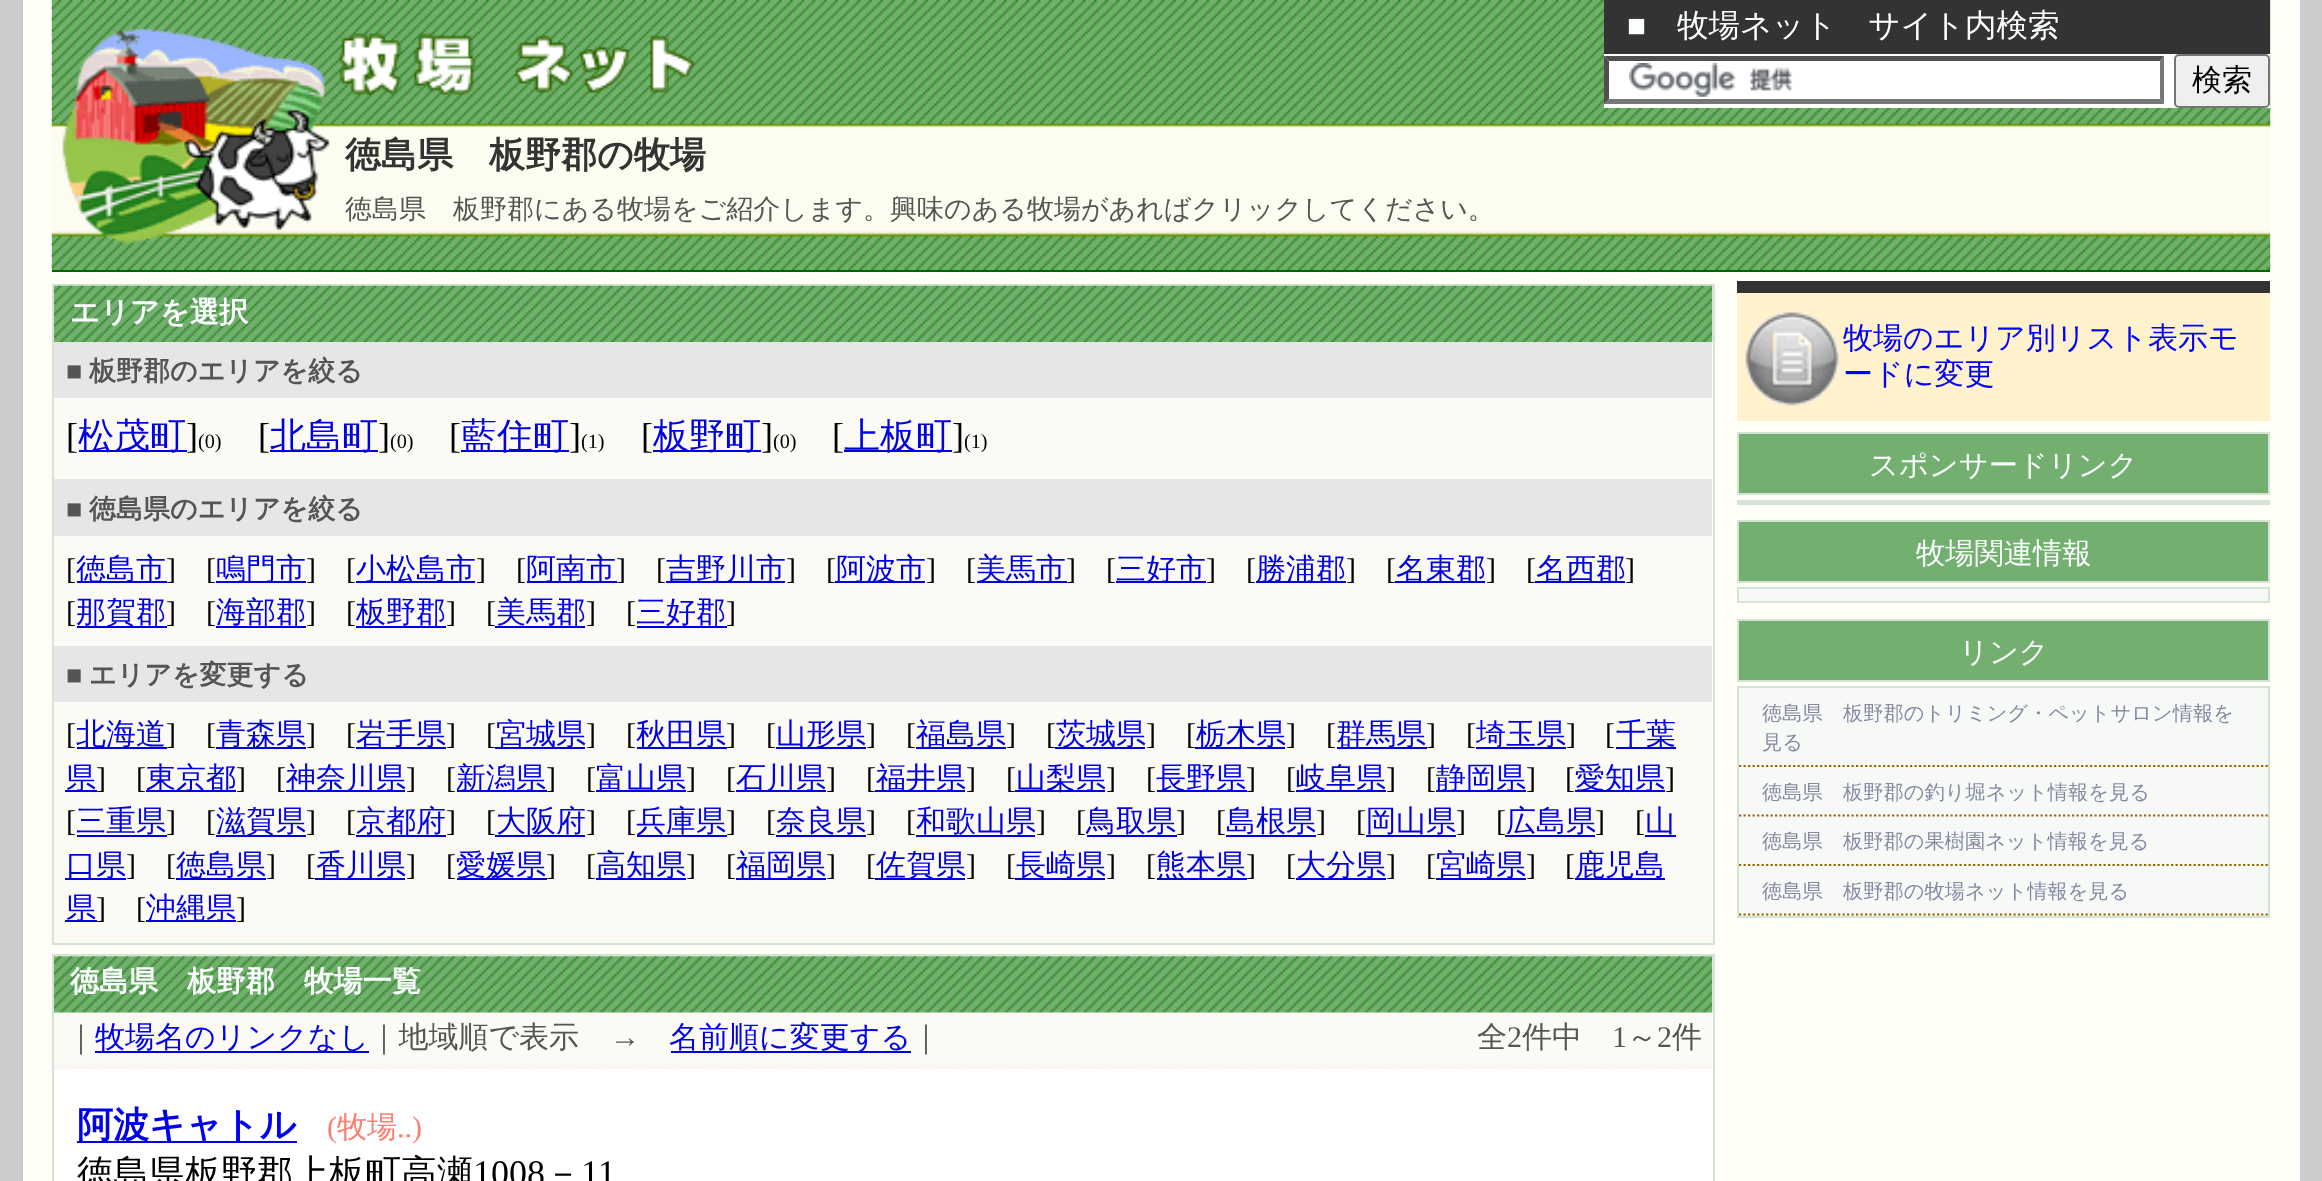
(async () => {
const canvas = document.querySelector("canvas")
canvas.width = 2322
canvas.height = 1181
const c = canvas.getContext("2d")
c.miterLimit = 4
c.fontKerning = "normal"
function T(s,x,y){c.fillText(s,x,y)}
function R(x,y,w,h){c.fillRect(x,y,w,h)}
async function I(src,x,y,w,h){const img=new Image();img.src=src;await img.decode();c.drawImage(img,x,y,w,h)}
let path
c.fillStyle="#ccc"
R(0,0,2322,1181)
c.fillStyle="#fffff7"
R(23,0,2277,1181)
await I("1.png",51,0,2220,270)
c.fillStyle="#060"
R(52,270,2218,2)
c.fillStyle="#fff"
R(1604,54,666,54)
c.fillStyle="#333"
R(1604,0,666,54)
c.font="31.5px Liberation Serif"
c.fillStyle="#fbfeff"
T("■",1627,36)
c.font="500 31.5px WenQuanYi Zen Hei"
T("牧場ネット　サイト内検索",1677,36)
await I("2.png",1629,63,164,34)
c.fillStyle="#4f4f4f"
path = new Path2D("M1604 56h560l-4 5h-551z")
c.fill(path)
c.fillStyle="#767676"
path = new Path2D("M2164 56v48l-4-5v-38z")
c.fill(path)
path = new Path2D("M2164 104h-560l5-5h551z")
c.fill(path)
c.fillStyle="#4f4f4f"
path = new Path2D("M1604 104v-48l5 5v38z")
c.fill(path)
c.fillStyle="#efefef"
c.beginPath()
c.roundRect(2175,55,94,52,4)
c.fill()
c.strokeStyle="#767676"
c.lineWidth=2
c.stroke()
c.font="500 30px WenQuanYi Zen Hei"
c.fillStyle="#000"
T("検索",2192,90)
c.font="bold 36px WenQuanYi Zen Hei"
c.fillStyle="#333"
T("徳島県　板野郡の牧場",345,167)
c.font="500 27px WenQuanYi Zen Hei"
c.fillStyle="#555"
T("徳島県　板野郡にある牧場をご紹介します。興味のある牧場があればクリックしてください。",345,218)
c.fillStyle="#fbfaf4"
c.beginPath()
c.rect(53,285,1661,659)
c.fill()
c.strokeStyle="#d5e3d5"
c.stroke()
await I("3.png",54,285,1659,57)
c.font="bold 29.25px WenQuanYi Zen Hei"
c.fillStyle="#fbfeff"
T("エリアを選択",70,322)
c.fillStyle="#e6e6e6"
R(54,342,1658,56)
c.font="bold 27px Liberation Serif"
c.fillStyle="#555"
T("■",66,380)
c.font="bold 27px WenQuanYi Zen Hei"
T("板野郡のエリアを絞る",89,380)
c.font="36px Liberation Serif"
c.fillStyle="#000"
T("[",66,448)
c.fillStyle="#0000e3"
R(79,450,108,2)
c.font="500 36px WenQuanYi Zen Hei"
T("松茂町",78,448)
c.font="36px Liberation Serif"
c.fillStyle="#000"
T("]",186,448)
c.font="20.25px Liberation Serif"
T("(0)",198,448)
c.font="36px Liberation Serif"
T("[",258,448)
c.fillStyle="#0000e3"
R(270,450,108,2)
c.font="500 36px WenQuanYi Zen Hei"
T("北島町",270,448)
c.font="36px Liberation Serif"
c.fillStyle="#000"
T("]",378,448)
c.font="20.25px Liberation Serif"
T("(0)",390,448)
c.font="36px Liberation Serif"
T("[",449,448)
c.fillStyle="#0000e3"
R(461,450,108,2)
c.font="500 36px WenQuanYi Zen Hei"
T("藍住町",461,448)
c.font="36px Liberation Serif"
c.fillStyle="#000"
T("]",569,448)
c.font="20.25px Liberation Serif"
T("(1)",581,448)
c.font="36px Liberation Serif"
T("[",641,448)
c.fillStyle="#0000e3"
R(653,450,108,2)
c.font="500 36px WenQuanYi Zen Hei"
T("板野町",653,448)
c.font="36px Liberation Serif"
c.fillStyle="#000"
T("]",761,448)
c.font="20.25px Liberation Serif"
T("(0)",773,448)
c.font="36px Liberation Serif"
T("[",832,448)
c.fillStyle="#0000e3"
R(844,450,108,2)
c.font="500 36px WenQuanYi Zen Hei"
T("上板町",844,448)
c.font="36px Liberation Serif"
c.fillStyle="#000"
T("]",952,448)
c.font="20.25px Liberation Serif"
T("(1)",964,448)
c.fillStyle="#e6e6e6"
R(54,479,1658,57)
c.font="bold 27px Liberation Serif"
c.fillStyle="#555"
T("■",66,518)
c.font="bold 27px WenQuanYi Zen Hei"
T("徳島県のエリアを絞る",89,518)
c.font="30px Liberation Serif"
c.fillStyle="#000"
T("[",66,579)
c.fillStyle="#0000e3"
R(77,581,90,2)
c.font="500 30px WenQuanYi Zen Hei"
T("徳島市",76,579)
c.font="30px Liberation Serif"
c.fillStyle="#000"
T("]",166,579)
T("[",206,579)
c.fillStyle="#0000e3"
R(216,581,90,2)
c.font="500 30px WenQuanYi Zen Hei"
T("鳴門市",216,579)
c.font="30px Liberation Serif"
c.fillStyle="#000"
T("]",306,579)
T("[",346,579)
c.fillStyle="#0000e3"
R(356,581,119,2)
c.font="500 30px WenQuanYi Zen Hei"
T("小松島市",356,579)
c.font="30px Liberation Serif"
c.fillStyle="#000"
T("]",476,579)
T("[",516,579)
c.fillStyle="#0000e3"
R(527,581,90,2)
c.font="500 30px WenQuanYi Zen Hei"
T("阿南市",526,579)
c.font="30px Liberation Serif"
c.fillStyle="#000"
T("]",616,579)
T("[",656,579)
c.fillStyle="#0000e3"
R(666,581,119,2)
c.font="500 30px WenQuanYi Zen Hei"
T("吉野川市",666,579)
c.font="30px Liberation Serif"
c.fillStyle="#000"
T("]",786,579)
T("[",826,579)
c.fillStyle="#0000e3"
R(835,581,90,2)
c.font="500 30px WenQuanYi Zen Hei"
T("阿波市",836,579)
c.font="30px Liberation Serif"
c.fillStyle="#000"
T("]",926,579)
T("[",966,579)
c.fillStyle="#0000e3"
R(977,581,90,2)
c.font="500 30px WenQuanYi Zen Hei"
T("美馬市",976,579)
c.font="30px Liberation Serif"
c.fillStyle="#000"
T("]",1066,579)
T("[",1106,579)
c.fillStyle="#0000e3"
R(1116,581,90,2)
c.font="500 30px WenQuanYi Zen Hei"
T("三好市",1116,579)
c.font="30px Liberation Serif"
c.fillStyle="#000"
T("]",1206,579)
T("[",1246,579)
c.fillStyle="#0000e3"
R(1256,581,90,2)
c.font="500 30px WenQuanYi Zen Hei"
T("勝浦郡",1256,579)
c.font="30px Liberation Serif"
c.fillStyle="#000"
T("]",1346,579)
T("[",1386,579)
c.fillStyle="#0000e3"
R(1395,581,90,2)
c.font="500 30px WenQuanYi Zen Hei"
T("名東郡",1396,579)
c.font="30px Liberation Serif"
c.fillStyle="#000"
T("]",1486,579)
T("[",1526,579)
c.fillStyle="#0000e3"
R(1535,581,90,2)
c.font="500 30px WenQuanYi Zen Hei"
T("名西郡",1536,579)
c.font="30px Liberation Serif"
c.fillStyle="#000"
T("]",1625,579)
T("[",66,622)
c.fillStyle="#0000e3"
R(77,626,90,2)
c.font="500 30px WenQuanYi Zen Hei"
T("那賀郡",76,622)
c.font="30px Liberation Serif"
c.fillStyle="#000"
T("]",166,622)
T("[",206,622)
c.font="500 30px WenQuanYi Zen Hei"
c.fillStyle="#0000e3"
T("海部郡",216,622)
R(216,626,90,2)
c.font="30px Liberation Serif"
c.fillStyle="#000"
T("]",306,622)
T("[",346,622)
c.font="500 30px WenQuanYi Zen Hei"
c.fillStyle="#0000e3"
T("板野郡",356,622)
R(356,626,90,2)
c.font="30px Liberation Serif"
c.fillStyle="#000"
T("]",446,622)
T("[",486,622)
c.font="500 30px WenQuanYi Zen Hei"
c.fillStyle="#0000e3"
T("美馬郡",496,622)
R(495,626,90,2)
c.font="30px Liberation Serif"
c.fillStyle="#000"
T("]",586,622)
T("[",626,622)
c.fillStyle="#0000e3"
R(637,626,90,2)
c.font="500 30px WenQuanYi Zen Hei"
T("三好郡",636,622)
c.font="30px Liberation Serif"
c.fillStyle="#000"
T("]",726,622)
c.fillStyle="#e6e6e6"
R(54,646,1658,56)
c.font="bold 27px Liberation Serif"
c.fillStyle="#555"
T("■",66,684)
c.font="bold 27px WenQuanYi Zen Hei"
T("エリアを変更する",89,684)
c.font="30px Liberation Serif"
c.fillStyle="#000"
T("[",66,744)
c.fillStyle="#0000e3"
R(77,747,90,2)
c.font="500 30px WenQuanYi Zen Hei"
T("北海道",76,744)
c.font="30px Liberation Serif"
c.fillStyle="#000"
T("]",166,744)
T("[",206,744)
c.fillStyle="#0000e3"
R(216,747,90,2)
c.font="500 30px WenQuanYi Zen Hei"
T("青森県",216,744)
c.font="30px Liberation Serif"
c.fillStyle="#000"
T("]",306,744)
T("[",346,744)
c.fillStyle="#0000e3"
R(356,747,90,2)
c.font="500 30px WenQuanYi Zen Hei"
T("岩手県",356,744)
c.font="30px Liberation Serif"
c.fillStyle="#000"
T("]",446,744)
T("[",486,744)
c.fillStyle="#0000e3"
R(495,747,90,2)
c.font="500 30px WenQuanYi Zen Hei"
T("宮城県",496,744)
c.font="30px Liberation Serif"
c.fillStyle="#000"
T("]",586,744)
T("[",626,744)
c.fillStyle="#0000e3"
R(637,747,90,2)
c.font="500 30px WenQuanYi Zen Hei"
T("秋田県",636,744)
c.font="30px Liberation Serif"
c.fillStyle="#000"
T("]",726,744)
T("[",766,744)
c.fillStyle="#0000e3"
R(776,747,90,2)
c.font="500 30px WenQuanYi Zen Hei"
T("山形県",776,744)
c.font="30px Liberation Serif"
c.fillStyle="#000"
T("]",866,744)
T("[",906,744)
c.fillStyle="#0000e3"
R(916,747,90,2)
c.font="500 30px WenQuanYi Zen Hei"
T("福島県",916,744)
c.font="30px Liberation Serif"
c.fillStyle="#000"
T("]",1006,744)
T("[",1046,744)
c.fillStyle="#0000e3"
R(1055,747,90,2)
c.font="500 30px WenQuanYi Zen Hei"
T("茨城県",1056,744)
c.font="30px Liberation Serif"
c.fillStyle="#000"
T("]",1146,744)
T("[",1186,744)
c.fillStyle="#0000e3"
R(1195,747,90,2)
c.font="500 30px WenQuanYi Zen Hei"
T("栃木県",1196,744)
c.font="30px Liberation Serif"
c.fillStyle="#000"
T("]",1286,744)
T("[",1326,744)
c.fillStyle="#0000e3"
R(1337,747,90,2)
c.font="500 30px WenQuanYi Zen Hei"
T("群馬県",1336,744)
c.font="30px Liberation Serif"
c.fillStyle="#000"
T("]",1426,744)
T("[",1466,744)
c.fillStyle="#0000e3"
R(1476,747,90,2)
c.font="500 30px WenQuanYi Zen Hei"
T("埼玉県",1476,744)
c.font="30px Liberation Serif"
c.fillStyle="#000"
T("]",1566,744)
T("[",1605,744)
c.fillStyle="#0000e3"
R(1616,747,60,2)
c.font="500 30px WenQuanYi Zen Hei"
T("千葉",1616,744)
R(65,790,32,2)
T("県",66,788)
c.font="30px Liberation Serif"
c.fillStyle="#000"
T("]",96,788)
T("[",136,788)
c.fillStyle="#0000e3"
R(146,790,90,2)
c.font="500 30px WenQuanYi Zen Hei"
T("東京都",146,788)
c.font="30px Liberation Serif"
c.fillStyle="#000"
T("]",236,788)
T("[",276,788)
c.fillStyle="#0000e3"
R(286,790,119,2)
c.font="500 30px WenQuanYi Zen Hei"
T("神奈川県",286,788)
c.font="30px Liberation Serif"
c.fillStyle="#000"
T("]",406,788)
T("[",446,788)
c.fillStyle="#0000e3"
R(457,790,90,2)
c.font="500 30px WenQuanYi Zen Hei"
T("新潟県",456,788)
c.font="30px Liberation Serif"
c.fillStyle="#000"
T("]",546,788)
T("[",586,788)
c.fillStyle="#0000e3"
R(596,790,90,2)
c.font="500 30px WenQuanYi Zen Hei"
T("富山県",596,788)
c.font="30px Liberation Serif"
c.fillStyle="#000"
T("]",686,788)
T("[",726,788)
c.fillStyle="#0000e3"
R(736,790,90,2)
c.font="500 30px WenQuanYi Zen Hei"
T("石川県",736,788)
c.font="30px Liberation Serif"
c.fillStyle="#000"
T("]",826,788)
T("[",866,788)
c.fillStyle="#0000e3"
R(875,790,90,2)
c.font="500 30px WenQuanYi Zen Hei"
T("福井県",876,788)
c.font="30px Liberation Serif"
c.fillStyle="#000"
T("]",966,788)
T("[",1006,788)
c.fillStyle="#0000e3"
R(1015,790,90,2)
c.font="500 30px WenQuanYi Zen Hei"
T("山梨県",1016,788)
c.font="30px Liberation Serif"
c.fillStyle="#000"
T("]",1106,788)
T("[",1146,788)
c.fillStyle="#0000e3"
R(1157,790,90,2)
c.font="500 30px WenQuanYi Zen Hei"
T("長野県",1156,788)
c.font="30px Liberation Serif"
c.fillStyle="#000"
T("]",1246,788)
T("[",1286,788)
c.fillStyle="#0000e3"
R(1296,790,90,2)
c.font="500 30px WenQuanYi Zen Hei"
T("岐阜県",1296,788)
c.font="30px Liberation Serif"
c.fillStyle="#000"
T("]",1386,788)
T("[",1426,788)
c.fillStyle="#0000e3"
R(1436,790,90,2)
c.font="500 30px WenQuanYi Zen Hei"
T("静岡県",1436,788)
c.font="30px Liberation Serif"
c.fillStyle="#000"
T("]",1526,788)
T("[",1565,788)
c.fillStyle="#0000e3"
R(1575,790,90,2)
c.font="500 30px WenQuanYi Zen Hei"
T("愛知県",1575,788)
c.font="30px Liberation Serif"
c.fillStyle="#000"
T("]",1665,788)
T("[",66,831)
c.font="500 30px WenQuanYi Zen Hei"
c.fillStyle="#0000e3"
T("三重県",76,831)
R(77,835,90,2)
c.font="30px Liberation Serif"
c.fillStyle="#000"
T("]",166,831)
T("[",206,831)
c.fillStyle="#0000e3"
R(216,835,90,2)
c.font="500 30px WenQuanYi Zen Hei"
T("滋賀県",216,831)
c.font="30px Liberation Serif"
c.fillStyle="#000"
T("]",306,831)
T("[",346,831)
c.font="500 30px WenQuanYi Zen Hei"
c.fillStyle="#0000e3"
T("京都府",356,831)
R(356,835,90,2)
c.font="30px Liberation Serif"
c.fillStyle="#000"
T("]",446,831)
T("[",486,831)
c.font="500 30px WenQuanYi Zen Hei"
c.fillStyle="#0000e3"
T("大阪府",496,831)
R(495,835,90,2)
c.font="30px Liberation Serif"
c.fillStyle="#000"
T("]",586,831)
T("[",626,831)
c.fillStyle="#0000e3"
R(637,835,90,2)
c.font="500 30px WenQuanYi Zen Hei"
T("兵庫県",636,831)
c.font="30px Liberation Serif"
c.fillStyle="#000"
T("]",726,831)
T("[",766,831)
c.font="500 30px WenQuanYi Zen Hei"
c.fillStyle="#0000e3"
T("奈良県",776,831)
R(776,835,90,2)
c.font="30px Liberation Serif"
c.fillStyle="#000"
T("]",866,831)
T("[",906,831)
c.fillStyle="#0000e3"
R(916,835,119,2)
c.font="500 30px WenQuanYi Zen Hei"
T("和歌山県",916,831)
c.font="30px Liberation Serif"
c.fillStyle="#000"
T("]",1036,831)
T("[",1076,831)
c.font="500 30px WenQuanYi Zen Hei"
c.fillStyle="#0000e3"
T("鳥取県",1086,831)
R(1087,835,90,2)
c.font="30px Liberation Serif"
c.fillStyle="#000"
T("]",1176,831)
T("[",1216,831)
c.font="500 30px WenQuanYi Zen Hei"
c.fillStyle="#0000e3"
T("島根県",1226,831)
R(1226,835,90,2)
c.font="30px Liberation Serif"
c.fillStyle="#000"
T("]",1316,831)
T("[",1356,831)
c.font="500 30px WenQuanYi Zen Hei"
c.fillStyle="#0000e3"
T("岡山県",1366,831)
R(1366,835,90,2)
c.font="30px Liberation Serif"
c.fillStyle="#000"
T("]",1456,831)
T("[",1496,831)
c.font="500 30px WenQuanYi Zen Hei"
c.fillStyle="#0000e3"
T("広島県",1506,831)
R(1505,835,90,2)
c.font="30px Liberation Serif"
c.fillStyle="#000"
T("]",1595,831)
T("[",1635,831)
c.font="500 30px WenQuanYi Zen Hei"
c.fillStyle="#0000e3"
T("山",1645,831)
R(1645,835,31,2)
R(65,878,61,2)
T("口県",66,875)
c.font="30px Liberation Serif"
c.fillStyle="#000"
T("]",126,875)
T("[",166,875)
c.fillStyle="#0000e3"
R(176,878,90,2)
c.font="500 30px WenQuanYi Zen Hei"
T("徳島県",176,875)
c.font="30px Liberation Serif"
c.fillStyle="#000"
T("]",266,875)
T("[",306,875)
c.fillStyle="#0000e3"
R(315,878,90,2)
c.font="500 30px WenQuanYi Zen Hei"
T("香川県",316,875)
c.font="30px Liberation Serif"
c.fillStyle="#000"
T("]",406,875)
T("[",446,875)
c.fillStyle="#0000e3"
R(457,878,90,2)
c.font="500 30px WenQuanYi Zen Hei"
T("愛媛県",456,875)
c.font="30px Liberation Serif"
c.fillStyle="#000"
T("]",546,875)
T("[",586,875)
c.fillStyle="#0000e3"
R(596,878,90,2)
c.font="500 30px WenQuanYi Zen Hei"
T("高知県",596,875)
c.font="30px Liberation Serif"
c.fillStyle="#000"
T("]",686,875)
T("[",726,875)
c.fillStyle="#0000e3"
R(736,878,90,2)
c.font="500 30px WenQuanYi Zen Hei"
T("福岡県",736,875)
c.font="30px Liberation Serif"
c.fillStyle="#000"
T("]",826,875)
T("[",866,875)
c.fillStyle="#0000e3"
R(875,878,90,2)
c.font="500 30px WenQuanYi Zen Hei"
T("佐賀県",876,875)
c.font="30px Liberation Serif"
c.fillStyle="#000"
T("]",966,875)
T("[",1006,875)
c.fillStyle="#0000e3"
R(1015,878,90,2)
c.font="500 30px WenQuanYi Zen Hei"
T("長崎県",1016,875)
c.font="30px Liberation Serif"
c.fillStyle="#000"
T("]",1106,875)
T("[",1146,875)
c.fillStyle="#0000e3"
R(1157,878,90,2)
c.font="500 30px WenQuanYi Zen Hei"
T("熊本県",1156,875)
c.font="30px Liberation Serif"
c.fillStyle="#000"
T("]",1246,875)
T("[",1286,875)
c.fillStyle="#0000e3"
R(1296,878,90,2)
c.font="500 30px WenQuanYi Zen Hei"
T("大分県",1296,875)
c.font="30px Liberation Serif"
c.fillStyle="#000"
T("]",1386,875)
T("[",1426,875)
c.fillStyle="#0000e3"
R(1436,878,90,2)
c.font="500 30px WenQuanYi Zen Hei"
T("宮崎県",1436,875)
c.font="30px Liberation Serif"
c.fillStyle="#000"
T("]",1526,875)
T("[",1565,875)
c.fillStyle="#0000e3"
R(1575,878,90,2)
c.font="500 30px WenQuanYi Zen Hei"
T("鹿児島",1575,875)
R(65,920,32,2)
T("県",66,918)
c.font="30px Liberation Serif"
c.fillStyle="#000"
T("]",96,918)
T("[",136,918)
c.fillStyle="#0000e3"
R(146,920,90,2)
c.font="500 30px WenQuanYi Zen Hei"
T("沖縄県",146,918)
c.font="30px Liberation Serif"
c.fillStyle="#000"
T("]",236,918)
c.fillStyle="#fff"
c.beginPath()
c.rect(53,955,1661,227)
c.fill()
c.stroke()
await I("4.png",54,956,1659,57)
c.font="bold 29.25px WenQuanYi Zen Hei"
c.fillStyle="#fbfeff"
T("徳島県　板野郡　牧場一覧",70,991)
c.fillStyle="#fbfaf4"
R(54,1013,1658,56)
path = new Path2D("M54 1067.5h1658")
c.strokeStyle="#f9efe8"
c.lineWidth=2.2
c.setLineDash([2.25,2.25])
c.stroke(path)
c.font="500 30px WenQuanYi Zen Hei"
c.fillStyle="#555"
T("｜",66,1047)
c.fillStyle="#00e"
R(95,1051,274,2)
T("牧場名のリンクなし",95,1047)
c.fillStyle="#555"
T("｜地域順で表示",369,1047)
c.font="30px Liberation Serif"
T("→",610,1047)
c.fillStyle="#00e"
R(671,1051,240,2)
c.font="500 30px WenQuanYi Zen Hei"
T("名前順に変更する",669,1047)
c.fillStyle="#555"
T("｜",911,1047)
T("全",1477,1047)
c.font="30px Liberation Serif"
T("2",1507,1047)
c.font="500 30px WenQuanYi Zen Hei"
T("件中",1522,1047)
c.font="30px Liberation Serif"
T("1",1612,1047)
c.font="500 30px WenQuanYi Zen Hei"
T("～",1627,1047)
c.font="30px Liberation Serif"
T("2",1657,1047)
c.font="500 30px WenQuanYi Zen Hei"
T("件",1672,1047)
c.fillStyle="#00e"
R(77,1141,220,2)
c.font="bold 36px WenQuanYi Zen Hei"
T("阿波キャトル",77,1137)
c.font="30px Liberation Serif"
c.fillStyle="#fa8072"
T("(",327,1137)
c.font="500 30px WenQuanYi Zen Hei"
T("牧場",337,1137)
c.font="30px Liberation Serif"
T("..)",397,1137)
c.font="500 36px WenQuanYi Zen Hei"
c.fillStyle="#000"
T("徳島県板野郡上板町高瀬",77,1185)
c.font="36px Liberation Serif"
T("1008",473,1185)
c.font="500 36px WenQuanYi Zen Hei"
T("－",545,1185)
c.font="36px Liberation Serif"
T("11",581,1185)
c.fillStyle="#fff2cc"
R(1737,293,533,128)
c.fillStyle="#333"
R(1737,281,533,12)
await I("5.png",1745,312,94,94)
c.font="500 30px WenQuanYi Zen Hei"
c.fillStyle="#00f"
T("牧場のエリア別リスト表示モ",1843,348)
T("ードに変更",1843,384)
c.fillStyle="#73af6e"
c.beginPath()
c.rect(1738,433,531,61)
c.fill()
c.strokeStyle="#d5e3d5"
c.lineWidth=2
c.setLineDash([])
c.stroke()
c.font="500 29.25px WenQuanYi Zen Hei"
c.fillStyle="#fbfeff"
T("スポンサードリンク",1869,475)
c.fillStyle="#d5e3d5"
R(1737,500,533,5)
c.fillStyle="#73af6e"
c.beginPath()
c.rect(1738,521,531,61)
c.fill()
c.stroke()
c.fillStyle="#fbfeff"
T("牧場関連情報",1916,563)
c.fillStyle="#f7f9f7"
c.beginPath()
c.rect(1738,588,531,14)
c.fill()
c.stroke()
c.fillStyle="#73af6e"
c.beginPath()
c.rect(1738,620,531,61)
c.fill()
c.stroke()
c.fillStyle="#fbfeff"
T("リンク",1959,662)
c.fillStyle="#f7f9f7"
c.beginPath()
c.rect(1738,687,531,230)
c.fill()
c.stroke()
path = new Path2D("M1739 766h529")
c.strokeStyle="#960"
c.lineWidth=2.2
c.setLineDash([2.25,2.25])
c.stroke(path)
c.font="500 20.25px WenQuanYi Zen Hei"
c.fillStyle="#828ba2"
T("徳島県　板野郡のトリミング・ペットサロン情報を",1762,720)
T("見る",1762,749)
path = new Path2D("M1739 815.5h529")
c.stroke(path)
T("徳島県　板野郡の釣り堀ネット情報を見る",1762,799)
path = new Path2D("M1739 865h529")
c.stroke(path)
T("徳島県　板野郡の果樹園ネット情報を見る",1762,848)
path = new Path2D("M1739 914.5h529")
c.stroke(path)
T("徳島県　板野郡の牧場ネット情報を見る",1762,898)
})()
